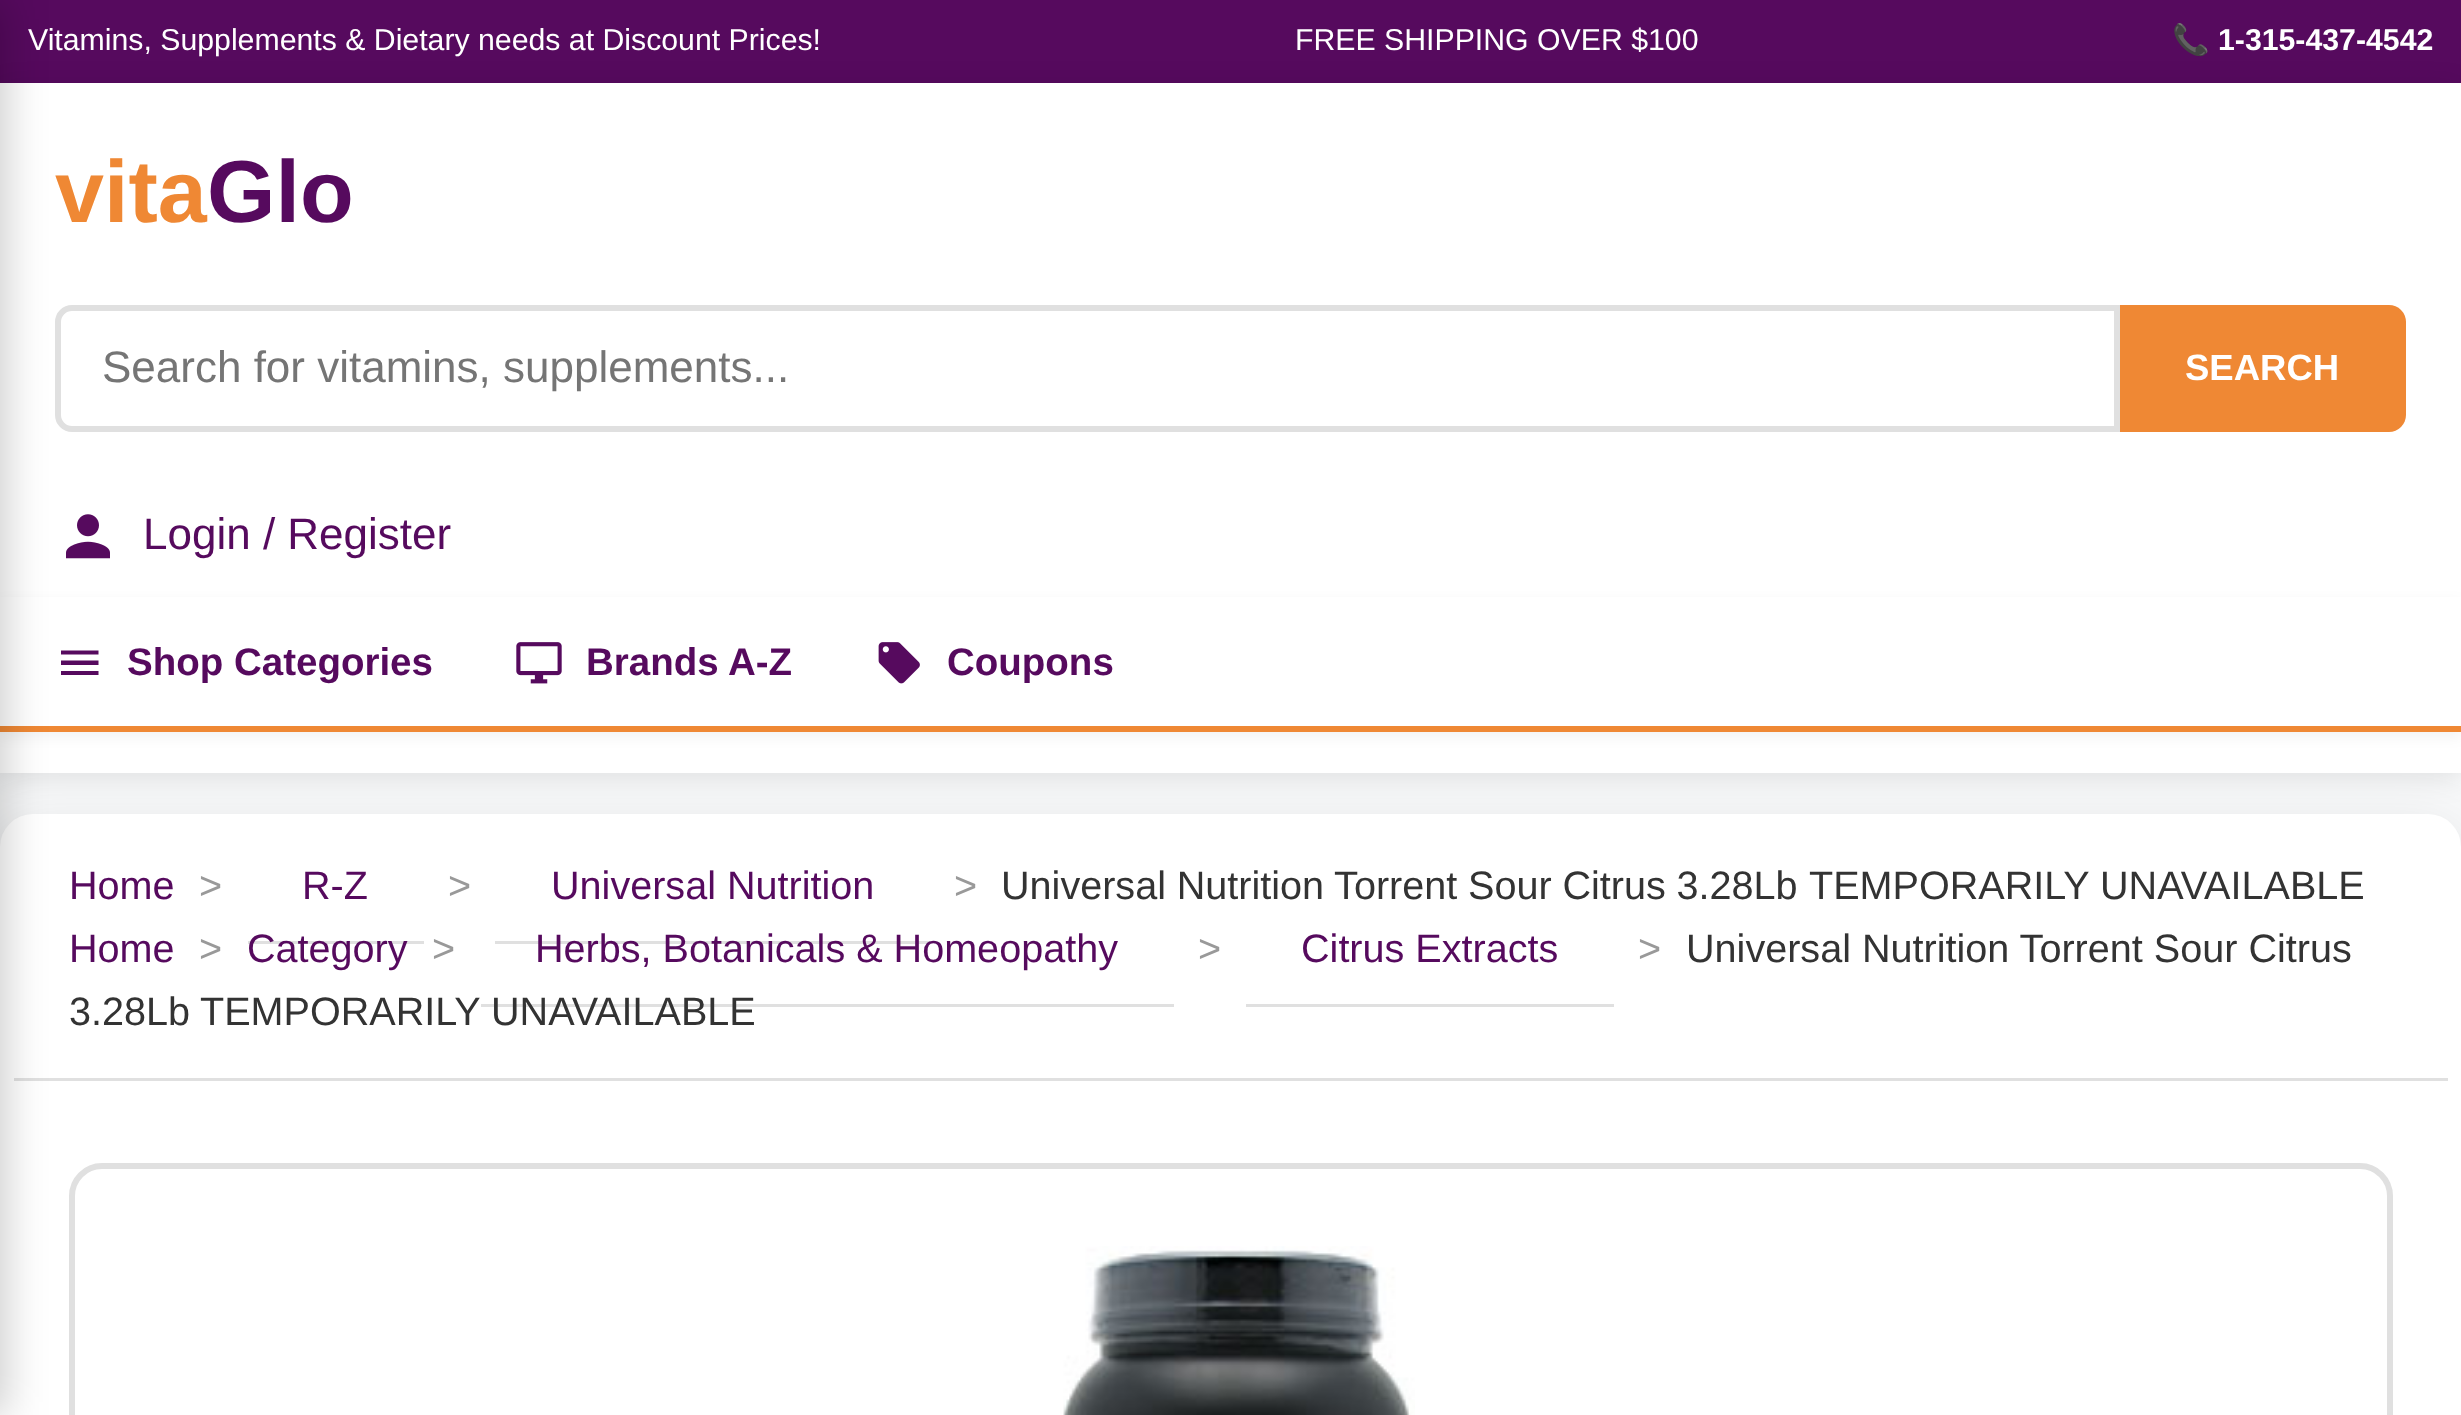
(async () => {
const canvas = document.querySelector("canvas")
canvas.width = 2461
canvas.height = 1415
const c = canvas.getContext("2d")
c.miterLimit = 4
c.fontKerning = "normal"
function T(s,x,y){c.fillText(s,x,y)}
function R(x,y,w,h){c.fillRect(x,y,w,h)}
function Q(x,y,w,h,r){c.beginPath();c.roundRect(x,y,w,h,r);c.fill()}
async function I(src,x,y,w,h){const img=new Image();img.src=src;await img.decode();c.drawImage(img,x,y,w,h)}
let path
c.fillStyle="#f8f9fa"
R(0,0,2461,1415)
c.fillStyle="#560a5e"
R(0,0,2461,83)
c.fillStyle="#0000001a"
c.filter="blur(14px)"
c.beginPath()
c.rect(0,88,2461,690)
c.fill()
c.filter="none"
c.fillStyle="#fff"
R(0,83,2461,690)
c.beginPath()
c.roundRect(58,308,2059,121,[14,0,0,14])
c.strokeStyle="#e0e0e0"
c.lineWidth=6
c.stroke()
await I("1.png",66,514,44,45)
c.fillStyle="#0000000d"
c.filter="blur(7px)"
c.beginPath()
c.rect(0,602,2461,135)
c.fill()
c.filter="none"
c.fillStyle="#fff"
R(0,597,2461,129)
c.fillStyle="#ef8834"
R(0,726,2461,6)
c.fillStyle="#560a5e"
path = new Path2D("M61 675h37.5v-4h-37.5zm0-10h37.5v-4.5h-37.5zm0-14.5v4h37.5v-4z")
c.fill(path)
c.fillStyle="#0000001a"
c.filter="blur(27.5px)"
c.beginPath()
c.roundRect(0,828,2461,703,33)
c.fill()
c.filter="none"
c.fillStyle="#fff"
Q(0,814,2461,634,33)
c.fillStyle="#e0e0e0"
R(14,1078,2434,3)
c.fillStyle="#00000033"
c.filter="blur(20.5px)"
c.beginPath()
c.rect(-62,0,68,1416)
c.fill()
c.filter="none"
c.font="30.25px Liberation Sans"
c.fillStyle="#fff"
T("Vitamins, Supplements & Dietary needs at Discount Prices!",28,50)
T("FREE SHIPPING OVER $100",1295,50)
c.font="bold 30.25px Noto Color Emoji"
T("📞",2172,50)
c.font="bold 30.25px Liberation Sans"
T("1-315-437-4542",2218,50)
c.font="bold 88px Liberation Sans"
c.fillStyle="#ef8834"
T("vita",55,222)
c.fillStyle="#560a5e"
T("Glo",207,222)
c.font="44px Liberation Sans"
c.fillStyle="#757575"
T("Search for vitamins, supplements...",102,382)
c.fillStyle="#ef8834"
c.beginPath()
c.roundRect(2120,305,286,127,[0,17,17,0])
c.fill()
c.font="bold 36.5px Liberation Sans"
c.fillStyle="#fff"
T("SEARCH",2185,380)
c.font="44px Liberation Sans"
c.fillStyle="#560a5e"
T("Login / Register",143,549)
c.font="bold 38.5px Liberation Sans"
T("Shop Categories",127,675)
await I("2.png",516,642,46,42)
T("Brands A-Z",586,675)
await I("3.png",878,642,42,42)
T("Coupons",947,675)
c.font="39.6px Liberation Sans"
T("Home",69,899)
c.fillStyle="#999"
T(">",199,899)
c.fillStyle="#560a5e"
T("R-Z",302,899)
c.fillStyle="#e0e0e0"
R(248,941,176,3)
c.fillStyle="#999"
T(">",448,899)
c.fillStyle="#560a5e"
T("Universal Nutrition",551,899)
c.fillStyle="#e0e0e0"
R(495,941,435,3)
c.fillStyle="#999"
T(">",954,899)
c.wordSpacing="-0.25px"
c.fillStyle="#333"
T("Universal Nutrition Torrent Sour Citrus 3.28Lb",1001,899)
c.wordSpacing="0px"
T("TEMPORARILY UNAVAILABLE",1809,899)
c.fillStyle="#560a5e"
T("Home",69,962)
c.fillStyle="#999"
T(">",199,962)
c.fillStyle="#560a5e"
T("Category",247,962)
c.fillStyle="#999"
T(">",432,962)
c.fillStyle="#560a5e"
T("Herbs, Botanicals & Homeopathy",535,962)
c.fillStyle="#e0e0e0"
R(481,1004,693,3)
c.fillStyle="#999"
T(">",1198,962)
c.fillStyle="#560a5e"
T("Citrus Extracts",1301,962)
c.fillStyle="#e0e0e0"
R(1246,1004,368,3)
c.fillStyle="#999"
T(">",1638,962)
c.fillStyle="#333"
T("Universal Nutrition Torrent Sour Citrus",1686,962)
T("3.28Lb",69,1025)
T("TEMPORARILY UNAVAILABLE",200,1025)
c.beginPath()
c.roundRect(72,1166,2318,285,30)
c.stroke()
await I("4.png",1063,1246,352,169)
})()
